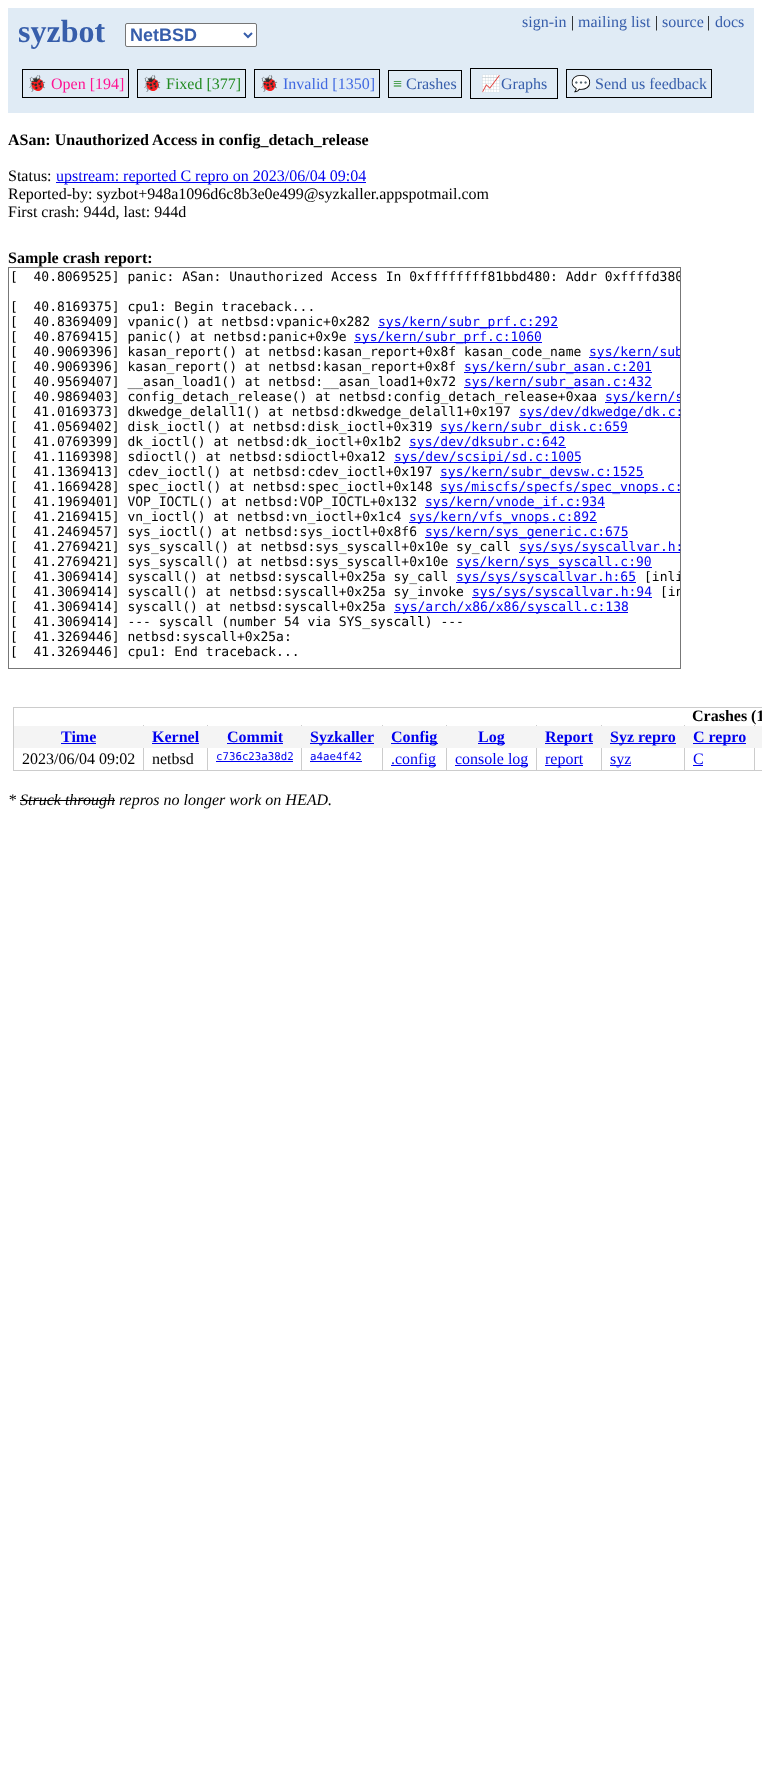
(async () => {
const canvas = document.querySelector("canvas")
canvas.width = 762
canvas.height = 1790
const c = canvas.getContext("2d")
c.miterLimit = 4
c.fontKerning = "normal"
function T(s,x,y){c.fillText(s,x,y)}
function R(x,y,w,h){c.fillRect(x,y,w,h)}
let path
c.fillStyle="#fff"
R(0,0,762,1790)
c.fillStyle="#e0ebf5"
R(8,8,746,105)
c.font="bold 32px Liberation Serif"
c.fillStyle="#375eab"
T("syzbot",18,42)
c.fillStyle="#fff"
c.beginPath()
c.roundRect(125.5,23.5,131,23,1.5)
c.fill()
c.strokeStyle="#767676"
c.stroke()
path = new Path2D("M244 33l4 4l4-4")
c.strokeStyle="#375eab"
c.lineWidth=2
c.stroke(path)
c.font="bold 18px Liberation Sans"
c.fillStyle="#375eab"
T("NetBSD",130,41)
c.font="16px Liberation Serif"
T("sign-in",522,27)
c.fillStyle="#000"
T("|",571,27)
c.fillStyle="#375eab"
T("mailing list",578,27)
c.fillStyle="#000"
T("|",655,27)
c.fillStyle="#375eab"
T("source",662,27)
c.fillStyle="#000"
T("|",707,27)
c.fillStyle="#375eab"
T("docs",715,27)
c.strokeStyle="#000"
c.lineWidth=1
c.strokeRect(22.5,69.5,106,28)
c.font="16px Noto Color Emoji"
c.fillStyle="#ff1493"
T("🐞",27,89)
c.font="16px Liberation Serif"
T("Open [194]",51,89)
c.strokeRect(137.5,69.5,108,28)
c.font="16px Noto Color Emoji"
c.fillStyle="#228b22"
T("🐞",142,89)
c.font="16px Liberation Serif"
T("Fixed [377]",166,89)
c.strokeRect(254.5,69.5,125,28)
c.font="16px Noto Color Emoji"
c.fillStyle="#4169e1"
T("🐞",259,89)
c.font="16px Liberation Serif"
T("Invalid [1350]",283,89)
c.strokeRect(388.5,70.5,73,27)
c.fillStyle="#228b22"
T("≡",393,89)
c.fillStyle="#375eab"
T("Crashes",406,89)
c.strokeRect(470.5,68.5,87,30)
c.font="16px Noto Color Emoji"
c.fillStyle="#ff8c00"
T("📈",481,89)
c.font="16px Liberation Serif"
c.fillStyle="#375eab"
T("Graphs",501,89)
c.strokeRect(566.5,69.5,145,28)
c.font="16px Noto Color Emoji"
c.fillStyle="#228b22"
T("💬",571,89)
c.font="16px Liberation Serif"
c.fillStyle="#375eab"
T("Send us feedback",595,89)
c.font="bold 16px Liberation Serif"
c.fillStyle="#000"
T("ASan: Unauthorized Access in config_detach_release",8,145)
c.font="16px Liberation Serif"
T("Status:",8,181)
c.fillStyle="#00e"
R(56,182,310,1)
T("upstream: reported C repro on 2023/06/04 09:04",56,181)
c.fillStyle="#000"
T("Reported-by: syzbot+948a1096d6c8b3e0e499@syzkaller.appspotmail.com",8,199)
T("First crash: 944d, last: 944d",8,217)
c.font="bold 16px Liberation Serif"
T("Sample crash report:",8,263)
c.strokeStyle="#777"
c.strokeRect(8.5,267.5,672,401)
c.save()
c.beginPath()
c.rect(9,268,671,400)
c.clip()
c.font="13px DejaVu Sans Mono"
T("[  40.8069525] panic: ASan: Unauthorized Access In 0xffffffff81bbd480: Addr 0xffffd380",10,281)
c.restore()
c.font="13px DejaVu Sans Mono"
T("[  40.8169375] cpu1: Begin traceback...",10,311)
T("[  40.8369409] vpanic() at netbsd:vpanic+0x282",10,326)
c.fillStyle="#00e"
R(378,327,180,1)
T("sys/kern/subr_prf.c:292",378,326)
c.fillStyle="#000"
T("[  40.8769415] panic() at netbsd:panic+0x9e",10,341)
c.fillStyle="#00e"
R(354,342,188,1)
T("sys/kern/subr_prf.c:1060",354,341)
c.fillStyle="#000"
T("[  40.9069396] kasan_report() at netbsd:kasan_report+0x8f kasan_code_name",10,356)
c.fillStyle="#00e"
R(589,357,91,1)
c.save()
c.beginPath()
c.rect(9,268,671,400)
c.clip()
T("sys/kern/sub",589,356)
c.restore()
c.fillStyle="#000"
T("[  40.9069396] kasan_report() at netbsd:kasan_report+0x8f",10,371)
c.fillStyle="#00e"
R(464,372,188,1)
T("sys/kern/subr_asan.c:201",464,371)
c.fillStyle="#000"
T("[  40.9569407] __asan_load1() at netbsd:__asan_load1+0x72",10,386)
c.fillStyle="#00e"
R(464,387,188,1)
T("sys/kern/subr_asan.c:432",464,386)
c.fillStyle="#000"
T("[  40.9869403] config_detach_release() at netbsd:config_detach_release+0xaa",10,401)
c.fillStyle="#00e"
R(605,402,75,1)
c.save()
c.beginPath()
c.rect(9,268,671,400)
c.clip()
T("sys/kern/s",605,401)
c.restore()
c.fillStyle="#000"
T("[  41.0169373] dkwedge_delall1() at netbsd:dkwedge_delall1+0x197",10,416)
c.fillStyle="#00e"
R(519,417,161,1)
T("sys/dev/dkwedge/dk.c:",519,416)
c.fillStyle="#000"
T("[  41.0569402] disk_ioctl() at netbsd:disk_ioctl+0x319",10,431)
c.fillStyle="#00e"
R(440,432,188,1)
T("sys/kern/subr_disk.c:659",440,431)
c.fillStyle="#000"
T("[  41.0769399] dk_ioctl() at netbsd:dk_ioctl+0x1b2",10,446)
c.fillStyle="#00e"
R(409,447,157,1)
T("sys/dev/dksubr.c:642",409,446)
c.fillStyle="#000"
T("[  41.1169398] sdioctl() at netbsd:sdioctl+0xa12",10,461)
c.fillStyle="#00e"
R(394,462,187,1)
T("sys/dev/scsipi/sd.c:1005",394,461)
c.fillStyle="#000"
T("[  41.1369413] cdev_ioctl() at netbsd:cdev_ioctl+0x197",10,476)
c.fillStyle="#00e"
R(440,477,204,1)
T("sys/kern/subr_devsw.c:1525",440,476)
c.fillStyle="#000"
T("[  41.1669428] spec_ioctl() at netbsd:spec_ioctl+0x148",10,491)
c.fillStyle="#00e"
R(440,492,240,1)
T("sys/miscfs/specfs/spec_vnops.c:",440,491)
c.fillStyle="#000"
T("[  41.1969401] VOP_IOCTL() at netbsd:VOP_IOCTL+0x132",10,506)
c.fillStyle="#00e"
R(425,507,180,1)
T("sys/kern/vnode_if.c:934",425,506)
c.fillStyle="#000"
T("[  41.2169415] vn_ioctl() at netbsd:vn_ioctl+0x1c4",10,521)
c.fillStyle="#00e"
R(409,522,188,1)
T("sys/kern/vfs_vnops.c:892",409,521)
c.fillStyle="#000"
T("[  41.2469457] sys_ioctl() at netbsd:sys_ioctl+0x8f6",10,536)
c.fillStyle="#00e"
R(425,537,203,1)
T("sys/kern/sys_generic.c:675",425,536)
c.fillStyle="#000"
T("[  41.2769421] sys_syscall() at netbsd:sys_syscall+0x10e sy_call",10,551)
c.fillStyle="#00e"
R(519,552,161,1)
T("sys/sys/syscallvar.h:",519,551)
c.fillStyle="#000"
T("[  41.2769421] sys_syscall() at netbsd:sys_syscall+0x10e",10,566)
c.fillStyle="#00e"
R(456,567,196,1)
T("sys/kern/sys_syscall.c:90",456,566)
c.fillStyle="#000"
T("[  41.3069414] syscall() at netbsd:syscall+0x25a sy_call",10,581)
c.fillStyle="#00e"
R(456,582,180,1)
T("sys/sys/syscallvar.h:65",456,581)
c.save()
c.beginPath()
c.rect(9,268,671,400)
c.clip()
c.fillStyle="#000"
T("[inli",644,581)
c.restore()
c.fillStyle="#000"
T("[  41.3069414] syscall() at netbsd:syscall+0x25a sy_invoke",10,596)
c.fillStyle="#00e"
R(472,597,180,1)
T("sys/sys/syscallvar.h:94",472,596)
c.save()
c.beginPath()
c.rect(9,268,671,400)
c.clip()
c.fillStyle="#000"
T("[in",660,596)
c.restore()
c.fillStyle="#000"
T("[  41.3069414] syscall() at netbsd:syscall+0x25a",10,611)
c.fillStyle="#00e"
R(394,612,234,1)
T("sys/arch/x86/x86/syscall.c:138",394,611)
c.fillStyle="#000"
T("[  41.3069414] --- syscall (number 54 via SYS_syscall) ---",10,626)
T("[  41.3269446] netbsd:syscall+0x25a:",10,641)
T("[  41.3269446] cpu1: End traceback...",10,656)
c.fillStyle="#ccc"
R(13,707,749,1)
R(13,770,749,1)
R(13,707,1,64)
c.font="bold 16px Liberation Serif"
c.fillStyle="#000"
T("Crashes (1",692,721)
c.fillStyle="#ccc"
R(143,725,1,45)
R(207,725,1,45)
R(301,725,1,45)
R(382,725,1,45)
R(446,725,1,45)
R(536,725,1,45)
R(601,725,1,45)
R(684,725,1,45)
R(754,725,1,45)
c.fillStyle="#f4f4f4"
R(14,726,748,22)
c.fillStyle="#00e"
T("Time",61,742)
R(61,743,35,1)
T("Kernel",152,742)
R(152,743,47,1)
T("Commit",227,742)
R(227,743,56,1)
R(310,743,64,1)
T("Syzkaller",310,742)
R(391,743,47,1)
T("Config",391,742)
R(478,743,27,1)
T("Log",478,742)
R(545,743,48,1)
T("Report",545,742)
R(610,743,66,1)
T("Syz repro",610,742)
R(693,743,53,1)
T("C repro",693,742)
c.font="16px Liberation Serif"
c.fillStyle="#000"
T("2023/06/04 09:02",22,764)
T("netbsd",152,764)
c.font="10.75px DejaVu Sans Mono"
c.fillStyle="#00e"
T("c736c23a38d2",216,760)
R(216,761,77,1)
T("a4ae4f42",310,760)
R(310,761,52,1)
R(391,765,45,1)
c.font="16px Liberation Serif"
T(".config",391,764)
R(455,765,73,1)
T("console log",455,764)
R(545,765,38,1)
T("report",545,764)
R(610,765,21,1)
T("syz",610,764)
T("C",693,764)
R(693,765,10,1)
c.font="italic 16px Liberation Serif"
c.fillStyle="#000"
T("* Struck through repros no longer work on HEAD.",8,805)
R(20,800,95,1)
})()
